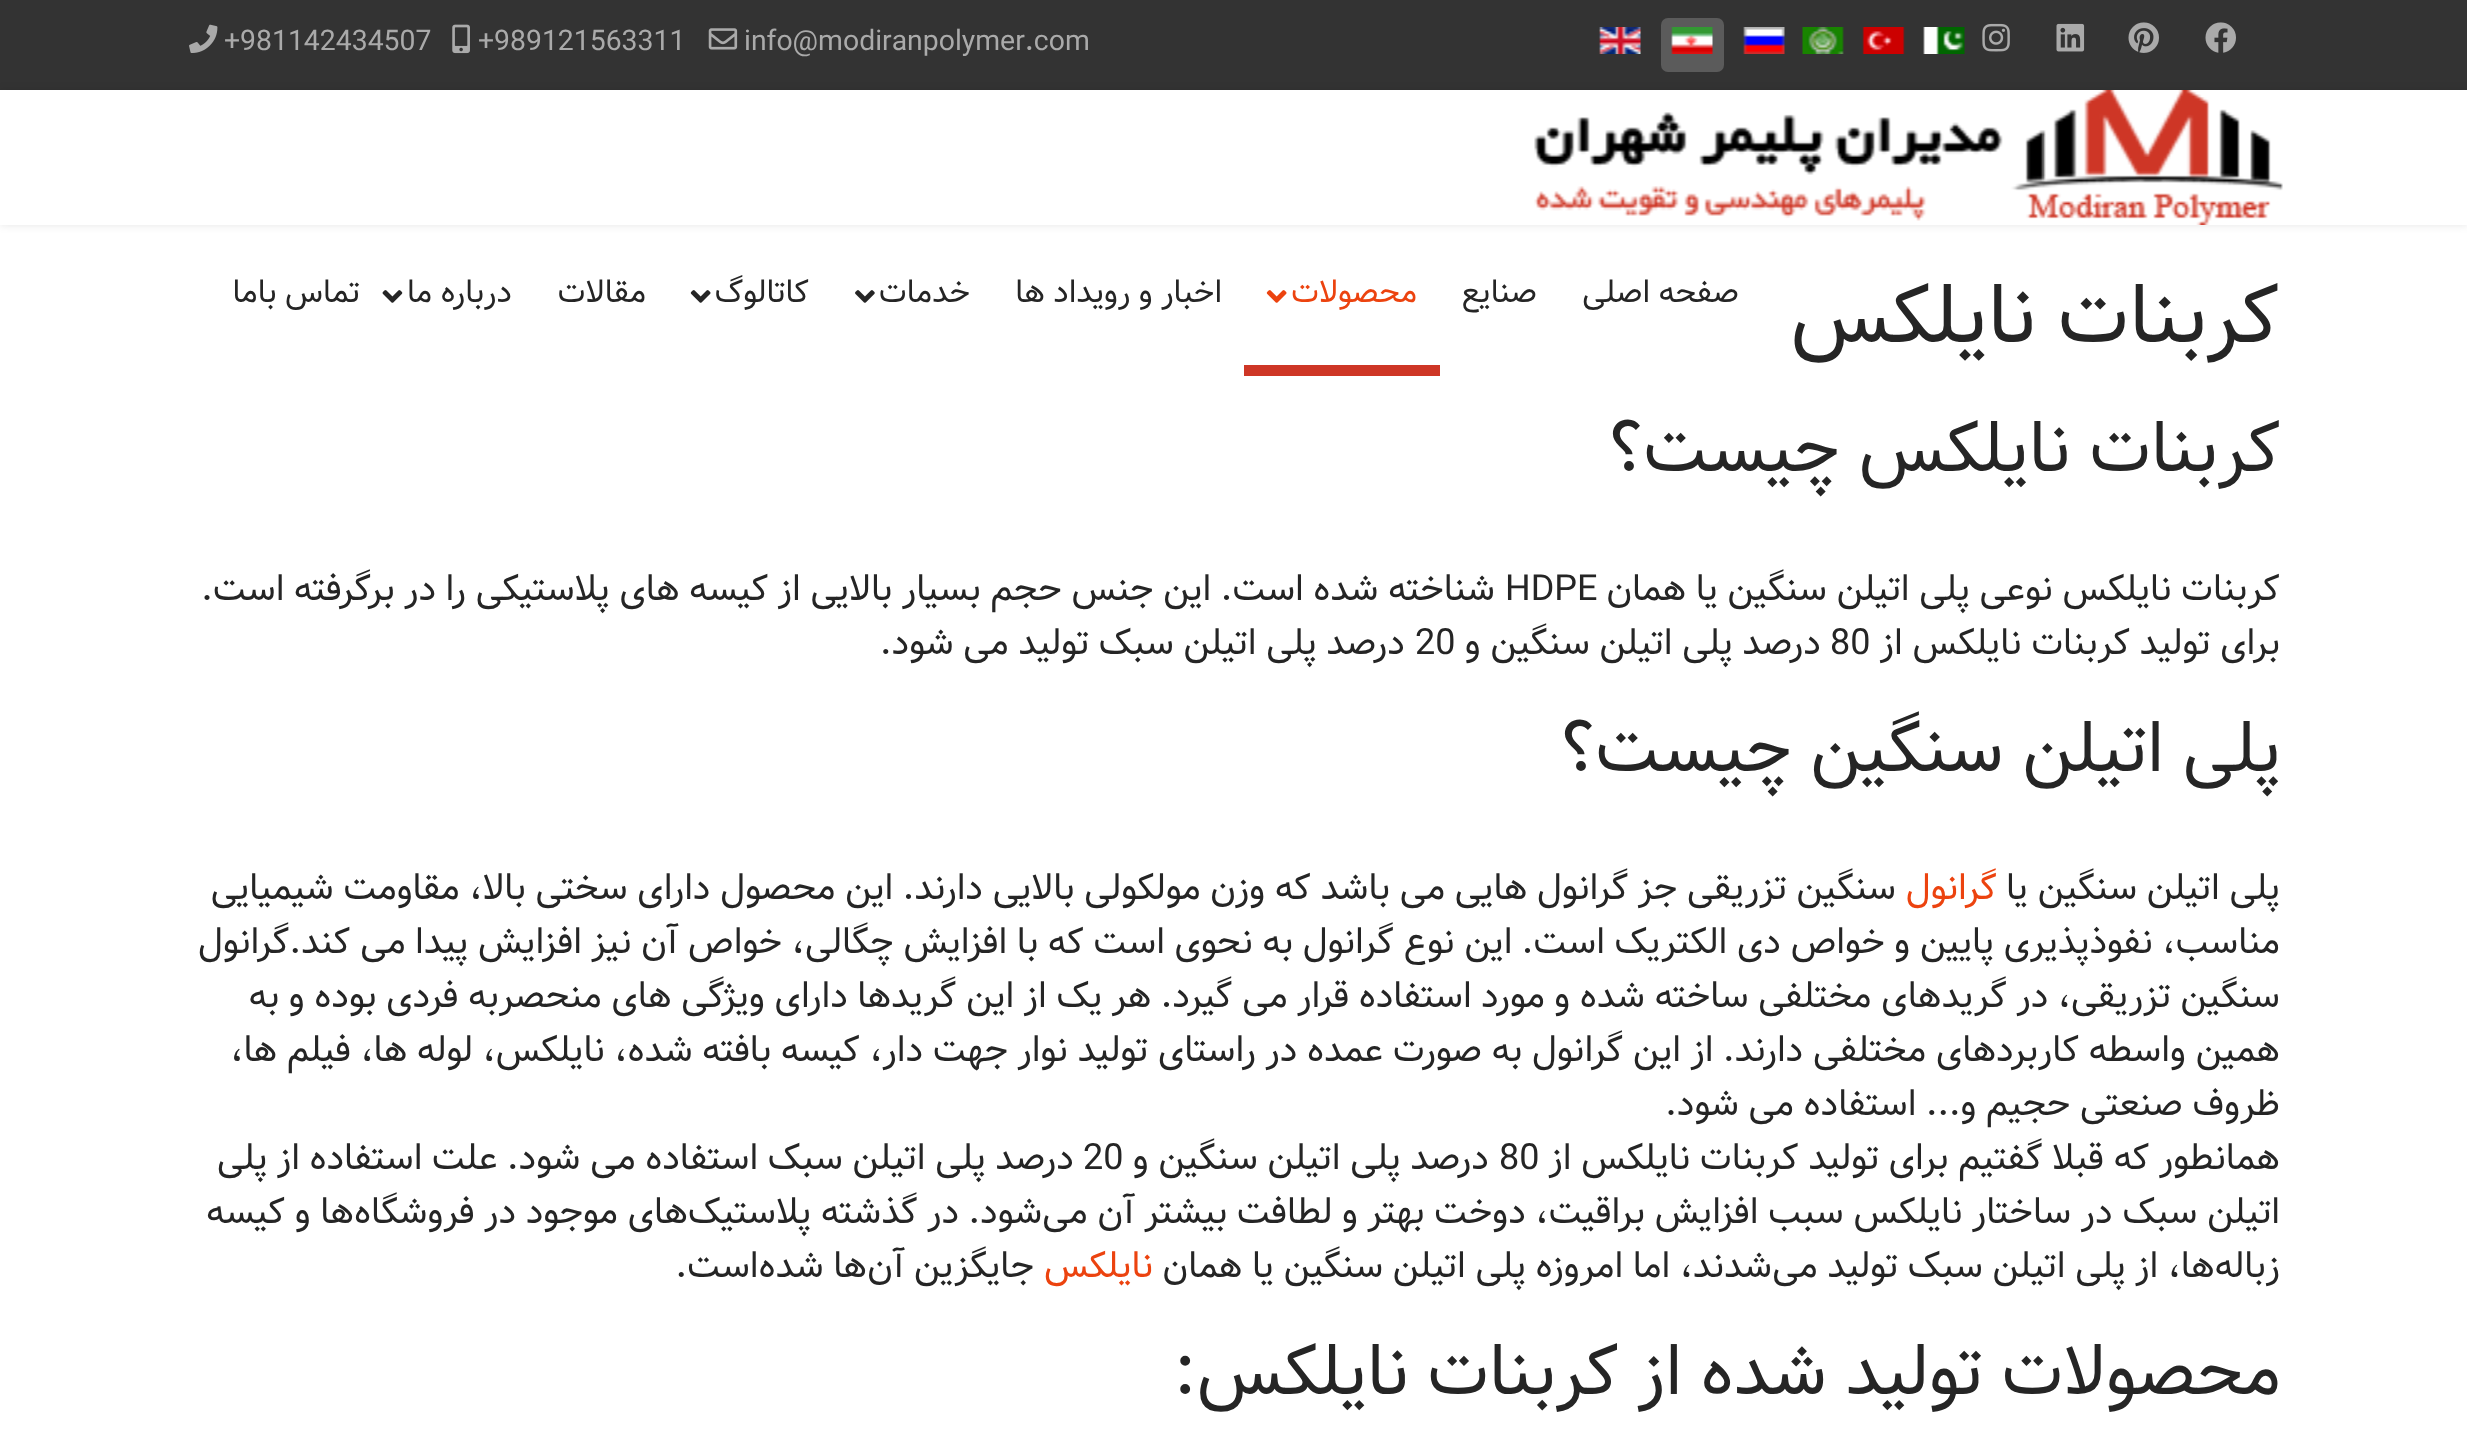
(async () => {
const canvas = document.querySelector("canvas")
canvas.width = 2467
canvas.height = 1450
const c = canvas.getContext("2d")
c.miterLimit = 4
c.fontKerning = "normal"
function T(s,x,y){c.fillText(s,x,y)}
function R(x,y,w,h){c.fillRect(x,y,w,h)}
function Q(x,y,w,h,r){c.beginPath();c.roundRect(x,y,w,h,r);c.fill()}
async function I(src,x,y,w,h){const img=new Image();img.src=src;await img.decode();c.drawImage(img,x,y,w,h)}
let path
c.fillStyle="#fff"
R(0,0,2467,1450)
c.fillStyle="#333"
R(0,0,2467,90)
await I("1.png",2205,22,31,31)
await I("2.png",2128,22,31,31)
await I("3.png",2056,23,29,29)
await I("4.png",1982,23,28,29)
await I("5.png",1923,27,42,27)
await I("6.png",1862,27,43,27)
await I("7.png",1802,27,42,27)
await I("8.png",1743,27,42,27)
c.fillStyle="#5b5b5b"
Q(1661,18,63,54,7)
await I("9.png",1671,27,42,27)
await I("10.png",1599,27,42,27)
c.font="28.4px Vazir"
c.fillStyle="#aaa"
T("info@modiranpolymer.com",744,50)
await I("11.png",708,28,30,22)
T("+989121563311",478,50)
await I("12.png",452,24,18,30)
T("+981142434507",224,50)
await I("13.png",189,24,29,29)
c.save()
path = new Path2D("M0 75h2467v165h-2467zm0 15h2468v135h-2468z")
c.clip(path,"evenodd")
c.fillStyle="#0000001a"
c.filter="blur(4.5px)"
c.beginPath()
c.rect(0,90,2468,135)
c.fill()
c.filter="none"
c.restore()
await I("14.png",1534,90,749,135)
c.direction="rtl"
c.font="31.5px Vazir"
c.fillStyle="#252525"
T("صفحه اصلی",1739,302)
T("صنایع",1537,302)
c.fillStyle="#ce3626"
R(1244,365,196,11)
c.fillStyle="#ec430f"
T("محصولات",1417,302)
await I("15.png",1266,290,21,13)
c.fillStyle="#252525"
T("اخبار و رویداد ها",1222,302)
T("خدمات",970,302)
await I("16.png",855,290,20,13)
T("کاتالوگ",809,302)
await I("17.png",690,290,21,13)
T("مقالات",646,302)
T("درباره ما",512,302)
await I("18.png",382,290,21,13)
T("تماس باما",360,302)
c.font="81px Vazir"
T("کربنات نایلکس",2280,342)
c.font="69.9px Vazir"
T("کربنات نایلکس چیست؟",2281,471)
c.font="36px Vazir"
T("کربنات نایلکس نوعی پلی اتیلن سنگین یا همان",2280,600)
c.direction="ltr"
T("HDPE",1505,600)
c.direction="rtl"
T("شناخته شده است. این جنس حجم بسیار بالایی از کیسه های پلاستیکی را در برگرفته است.",1495,600)
T("برای تولید کربنات نایلکس از",2280,654)
c.direction="ltr"
T("80",1830,654)
c.direction="rtl"
T("درصد پلی اتیلن سنگین و",1821,654)
c.direction="ltr"
T("20",1415,654)
c.direction="rtl"
T("درصد پلی اتیلن سبک تولید می شود.",1405,654)
c.font="69.9px Vazir"
T("پلی اتیلن سنگین چیست؟",2281,771)
c.font="36px Vazir"
T("پلی اتیلن سنگین یا",2280,899)
c.fillStyle="#ec430f"
T("گرانول",1997,899)
c.fillStyle="#252525"
T("سنگین تزریقی جز گرانول هایی می باشد که وزن مولکولی بالایی دارند. این محصول دارای سختی بالا، مقاومت شیمیایی",1896,899)
T("مناسب، نفوذپذیری پایین و خواص دی الکتریک است. این نوع گرانول به نحوی است که با افزایش چگالی، خواص آن نیز افزایش پیدا می کند.گرانول",2280,953)
T("سنگین تزریقی، در گریدهای مختلفی ساخته شده و مورد استفاده قرار می گیرد. هر یک از این گریدها دارای ویژگی های منحصربه فردی بوده و به",2280,1007)
T("همین واسطه کاربردهای مختلفی دارند. از این گرانول به صورت عمده در راستای تولید نوار جهت دار، کیسه بافته شده، نایلکس، لوله ها، فیلم ها،",2280,1061)
T("ظروف صنعتی حجیم و... استفاده می شود.",2280,1115)
T("همانطور که قبلا گفتیم برای تولید کربنات نایلکس از",2280,1169)
c.direction="ltr"
T("80",1499,1169)
c.direction="rtl"
T("درصد پلی اتیلن سنگین و",1489,1169)
c.direction="ltr"
T("20",1083,1169)
c.direction="rtl"
T("درصد پلی اتیلن سبک استفاده می شود. علت استفاده از پلی",1074,1169)
T("اتیلن سبک در ساختار نایلکس سبب افزایش براقیت، دوخت بهتر و لطافت بیشتر آن می‌شود. در گذشته پلاستیک‌های موجود در فروشگاه‌ها و کیسه",2280,1223)
T("زباله‌ها، از پلی اتیلن سبک تولید می‌شدند، اما امروزه پلی اتیلن سنگین یا همان",2280,1277)
c.fillStyle="#ec430f"
T("نایلکس",1153,1277)
c.fillStyle="#252525"
T("جایگزین آن‌ها شده‌است.",1034,1277)
c.font="69.9px Vazir"
T("محصولات تولید شده از کربنات نایلکس:",2281,1394)
})()
